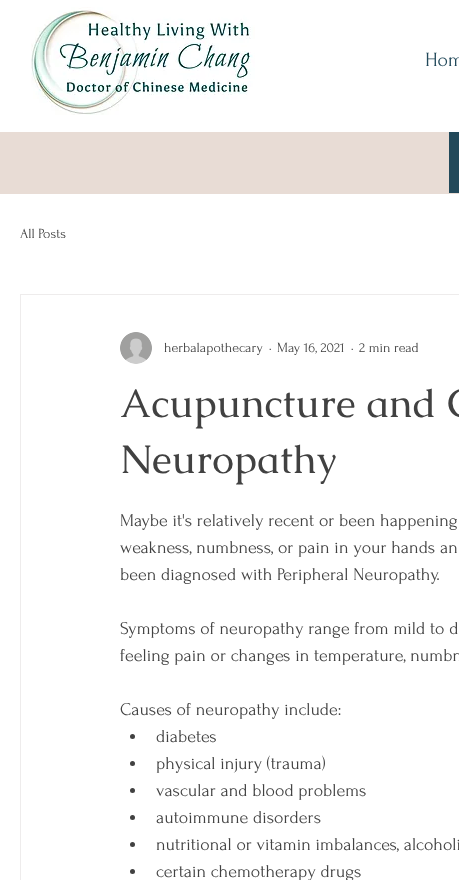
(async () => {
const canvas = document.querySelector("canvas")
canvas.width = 459
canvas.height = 880
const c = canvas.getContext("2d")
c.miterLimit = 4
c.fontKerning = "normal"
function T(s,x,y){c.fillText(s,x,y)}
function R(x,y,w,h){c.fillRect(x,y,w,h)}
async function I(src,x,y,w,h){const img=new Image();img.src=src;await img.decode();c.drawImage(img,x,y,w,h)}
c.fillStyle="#fff"
R(0,0,459,880)
await I("1.png",31,7,224,108)
c.font="20px Forum"
c.fillStyle="#22495a"
T("Hom",425,66)
c.fillStyle="#e8dcd5"
R(0,132,459,62)
c.fillStyle="#22495a"
R(449,132,10,61)
c.font="14px Forum"
c.fillStyle="#414141"
T("All Posts",20,238)
c.strokeStyle="#eeecec"
c.strokeRect(20.5,294.5,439,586)
await I("2.png",120,332,32,32)
T("herbalapothecary",164,352)
T("·",269,352)
T("May 16, 2021",277,352)
T("·",351,352)
T("2 min read",359,352)
c.font="40px Caudex"
T("Acupuncture and C",120,417)
T("Neuropathy",120,473)
c.font="18px Forum"
T("Maybe it's relatively recent or been happening",120,526)
T("weakness, numbness, or pain in your hands an",120,553)
T("been diagnosed with Peripheral Neuropathy.",120,580)
T("Symptoms of neuropathy range from mild to d",120,634)
T("feeling pain or changes in temperature, numbn",120,661)
T("Causes of neuropathy include:",120,715)
c.beginPath()
c.arc(132.5,736.5,2.5,0,7)
c.fill()
T("diabetes",156,742)
c.beginPath()
c.arc(132.5,763.5,2.5,0,7)
c.fill()
T("physical injury (trauma)",156,769)
c.beginPath()
c.arc(132.5,790.5,2.5,0,7)
c.fill()
T("vascular and blood problems",156,796)
c.beginPath()
c.arc(132.5,817.5,2.5,0,7)
c.fill()
T("autoimmune disorders",156,823)
c.beginPath()
c.arc(132.5,844.5,2.5,0,7)
c.fill()
T("nutritional or vitamin imbalances, alcoholi",156,850)
c.beginPath()
c.arc(132.5,871.5,2.5,0,7)
c.fill()
T("certain chemotherapy drugs",156,877)
})()
